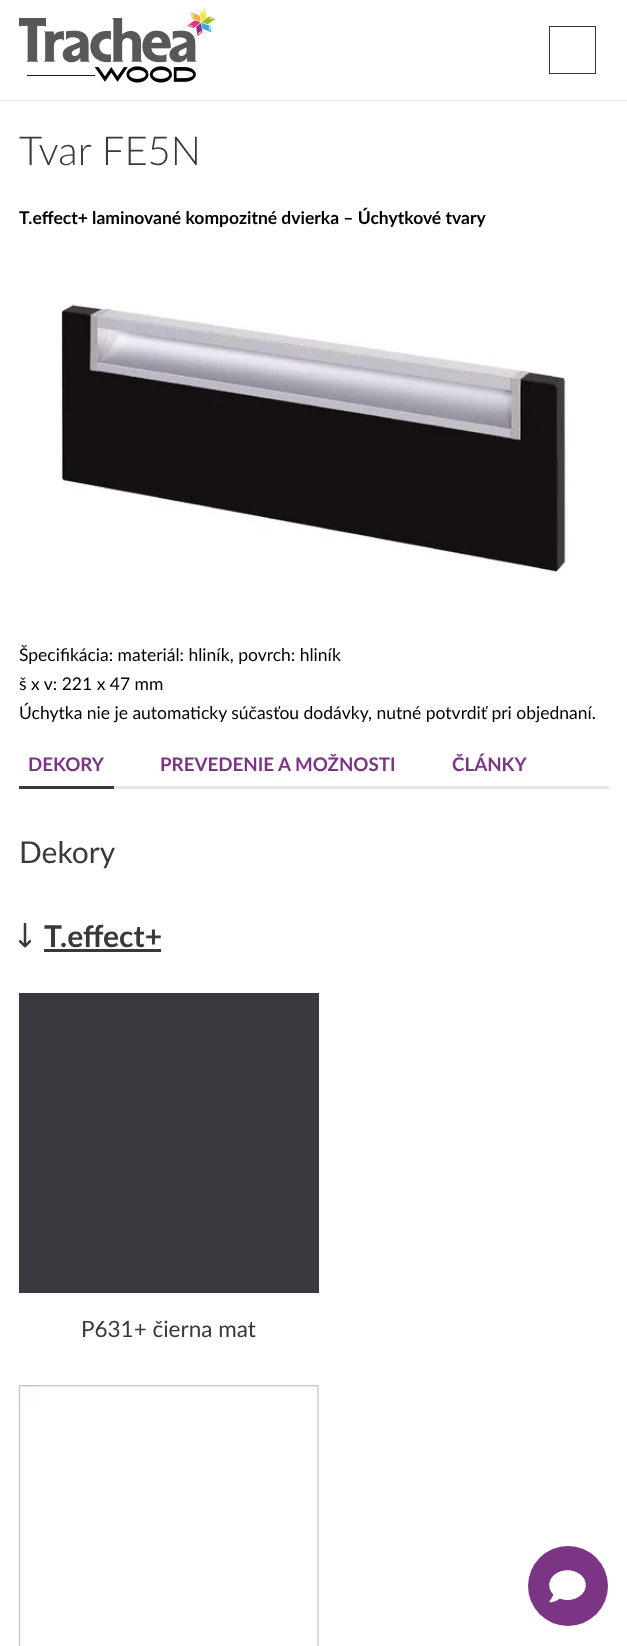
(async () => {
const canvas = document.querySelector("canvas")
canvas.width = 627
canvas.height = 1646
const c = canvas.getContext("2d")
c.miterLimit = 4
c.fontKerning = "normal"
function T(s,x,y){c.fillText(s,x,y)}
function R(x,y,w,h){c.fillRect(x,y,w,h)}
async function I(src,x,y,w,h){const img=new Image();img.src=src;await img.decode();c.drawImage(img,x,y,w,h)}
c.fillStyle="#fff"
R(0,0,627,1646)
c.fillStyle="#e7e7e7"
R(0,100,627,1)
await I("1.png",19,9,196,74)
c.strokeStyle="#393939"
c.strokeRect(549.5,26.5,46,47)
c.font="300 40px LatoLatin"
c.fillStyle="#39393a"
T("Tvar FE5N",19,165)
c.font="bold 17.5px LatoLatin"
c.fillStyle="#000"
T("T.effect+ laminované kompozitné dvierka – Úchytkové tvary",19,224)
await I("2.png",59,304,510,269)
c.font="17.5px LatoLatin"
T("Špecifikácia: materiál: hliník, povrch: hliník",19,661)
T("š x v: 221 x 47 mm",19,690)
T("Úchytka nie je automaticky súčasťou dodávky, nutné potvrdiť pri objednaní.",19,719)
c.fillStyle="#e7e7e7"
R(114,786,495,3)
c.fillStyle="#39393a"
R(19,786,95,3)
c.font="bold 18.75px LatoLatin"
c.fillStyle="#7c3585"
T("DEKORY",28,771)
T("PREVEDENIE A MOŽNOSTI",160,771)
T("ČLÁNKY",452,771)
c.font="30px LatoLatin"
c.fillStyle="#39393a"
T("Dekory",19,863)
await I("3.png",19,923,12,25)
c.font="bold 30px LatoLatin"
T("T.effect+",44,947)
R(44,949,117,3)
c.fillStyle="#3a3940"
R(19,993,300,300)
c.font="22.5px LatoLatin"
c.fillStyle="#39393a"
T("P631+ čierna mat",81,1337)
await I("4.png",18,1385,301,261)
c.fillStyle="#7c3585"
c.beginPath()
c.arc(568,1586,40,0,7)
c.fill()
await I("5.png",549,1570,37,33)
})()
